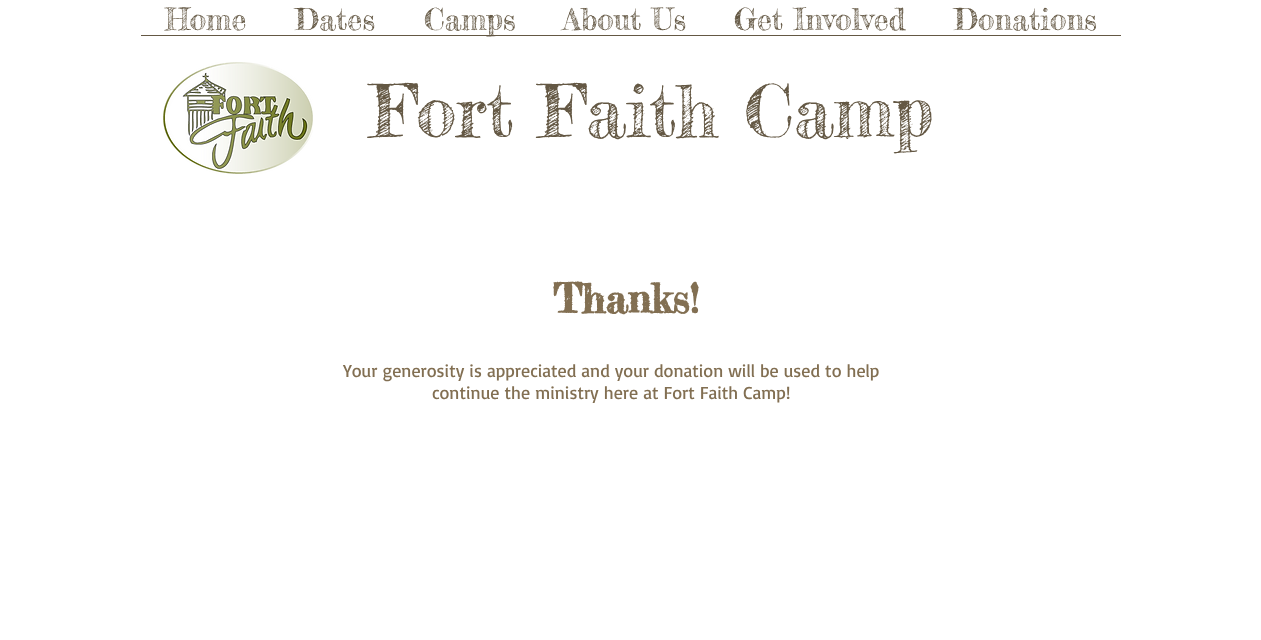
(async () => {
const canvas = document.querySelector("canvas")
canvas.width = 1261
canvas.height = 640
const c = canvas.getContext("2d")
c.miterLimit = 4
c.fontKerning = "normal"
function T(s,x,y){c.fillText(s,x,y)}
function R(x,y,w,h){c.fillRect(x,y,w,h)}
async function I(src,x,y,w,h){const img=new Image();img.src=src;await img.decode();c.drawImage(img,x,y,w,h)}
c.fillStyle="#fff"
R(0,0,1261,640)
c.font="30px Fredericka the Great"
c.fillStyle="#645844"
T("Home",165,30)
T("Dates",295,30)
R(141,35,980,1)
T("Camps",424,30)
T("About Us",563,30)
T("Get Involved",734,30)
T("Donations",954,30)
await I("1.png",163,62,150,112)
c.font="72px Fredericka the Great"
T("Fort Faith Camp",371,137)
c.font="bold 40px Fredericka the Great"
c.fillStyle="#826f52"
T("Thanks!",553,313)
c.font="18px Basic"
T("Your generosity is appreciated and your donation will be used to help",343,377)
T("continue the ministry here at Fort Faith Camp!",432,399)
})()
